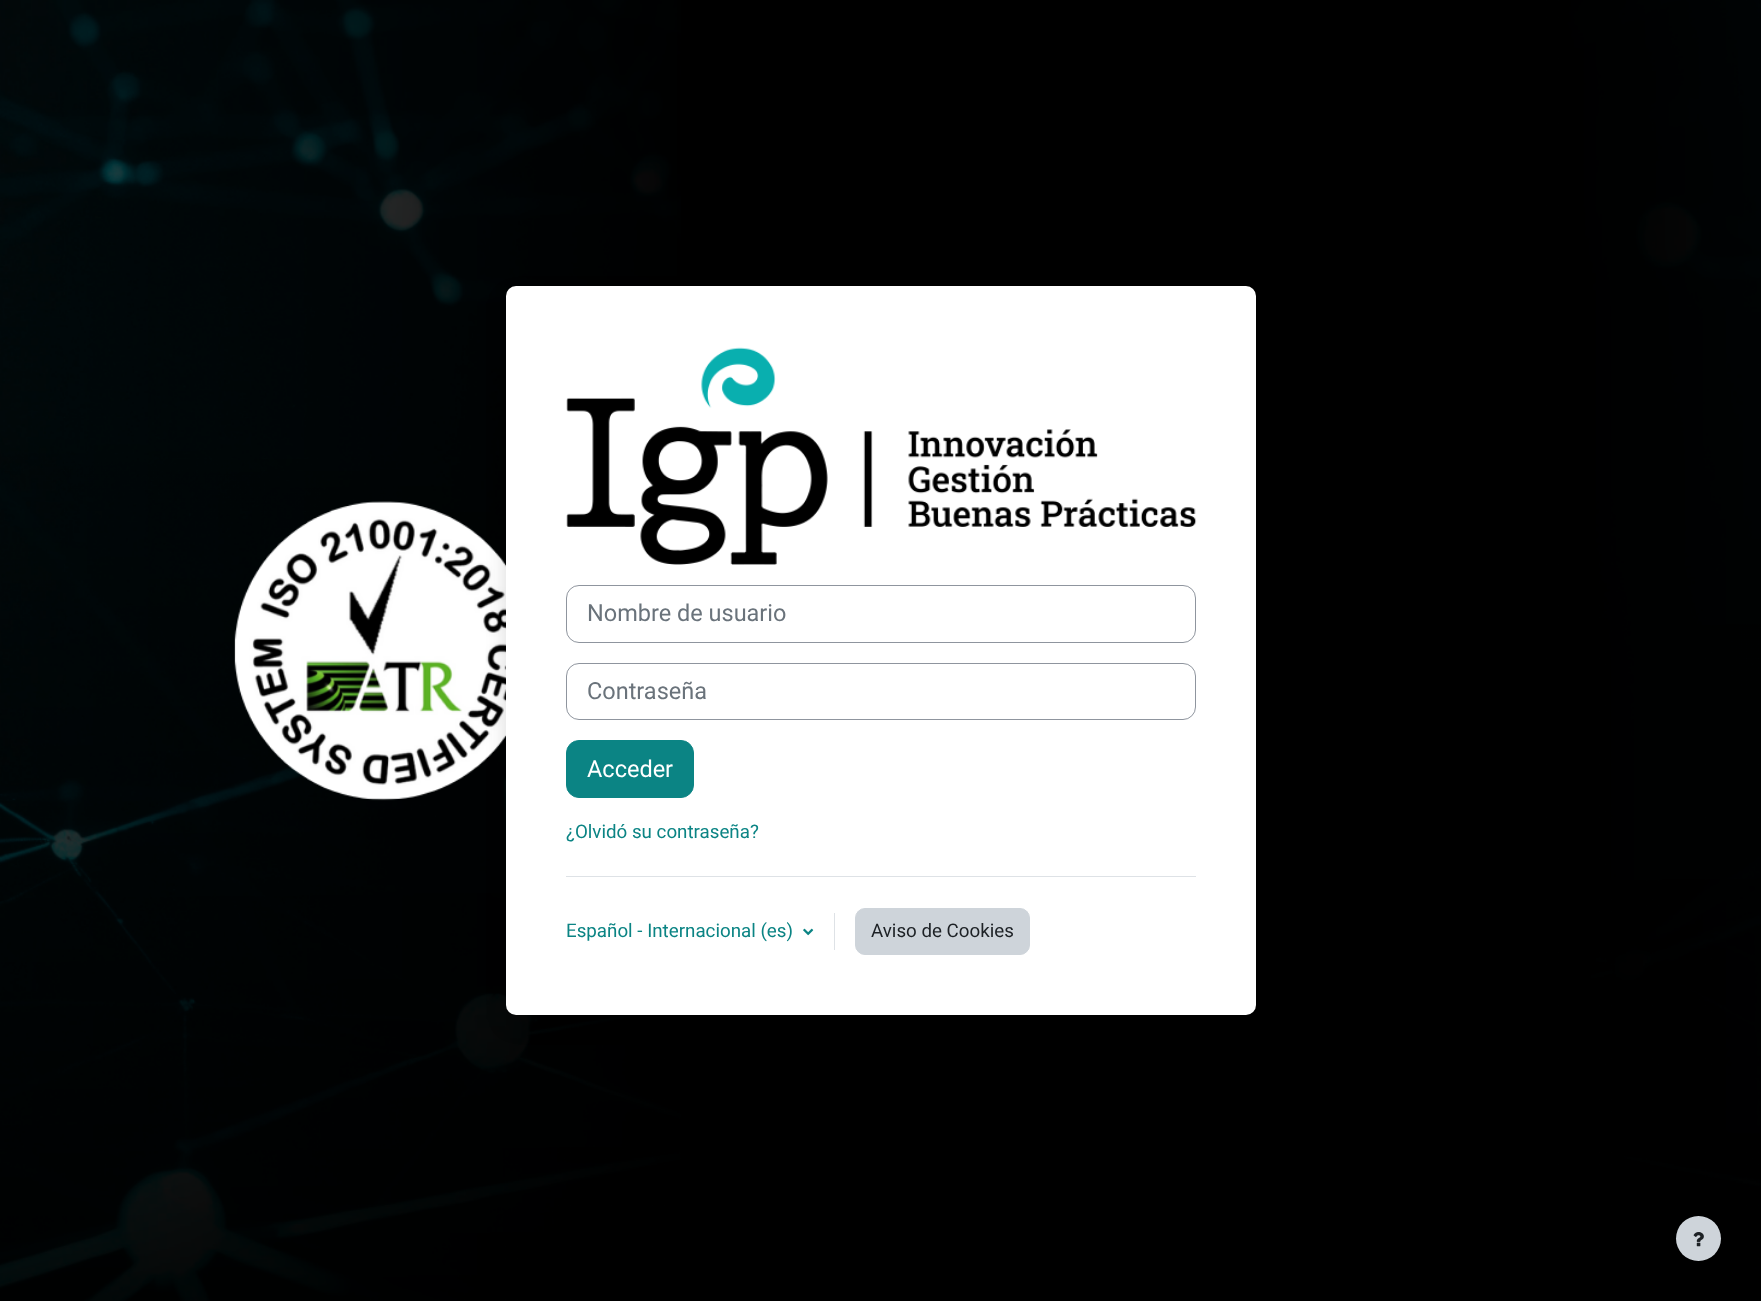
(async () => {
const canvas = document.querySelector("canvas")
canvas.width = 1761
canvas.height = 1301
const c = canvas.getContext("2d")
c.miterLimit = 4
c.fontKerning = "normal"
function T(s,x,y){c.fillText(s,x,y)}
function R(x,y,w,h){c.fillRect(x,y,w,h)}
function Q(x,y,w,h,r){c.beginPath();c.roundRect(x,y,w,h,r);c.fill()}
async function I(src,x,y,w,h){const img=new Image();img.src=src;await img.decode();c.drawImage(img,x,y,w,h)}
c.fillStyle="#fff"
R(0,0,1761,1301)
await I("1.png",0,0,1761,1301)
c.fillStyle="#00000026"
c.filter="blur(10px)"
c.beginPath()
c.roundRect(506,296,750,729,10)
c.fill()
c.filter="none"
c.fillStyle="#fff"
Q(506,286,750,729,10)
await I("2.png",566,347,631,218)
c.beginPath()
c.roundRect(566.5,585.5,629,57,12.5)
c.strokeStyle="#8f959e"
c.stroke()
c.font="23.5px Roboto"
c.fillStyle="#6a737b"
T("Nombre de usuario",587,621)
c.beginPath()
c.roundRect(566.5,663.5,629,56,12.5)
c.stroke()
T("Contraseña",587,699)
c.fillStyle="#0b8484"
c.beginPath()
c.roundRect(566.5,740.5,127,57,12.5)
c.fill()
c.strokeStyle="#0b8484"
c.stroke()
c.fillStyle="#fff"
T("Acceder",587,777)
c.font="18.75px Roboto"
c.fillStyle="#0b8484"
T("¿Olvidó su contraseña?",566,838)
c.fillStyle="#dee2e6"
R(566,876,630,1)
c.fillStyle="#0b8484"
T("Español - Internacional (es)",566,937)
await I("3.png",803,928,11,8)
c.fillStyle="#dee2e6"
R(834,913,1,37)
c.fillStyle="#ced4da"
c.beginPath()
c.roundRect(855.5,908.5,174,46,9.5)
c.fill()
c.strokeStyle="#ced4da"
c.stroke()
c.fillStyle="#1d2125"
T("Aviso de Cookies",871,937)
c.fillStyle="#ced4da"
c.beginPath()
c.arc(1698.5,1238.5,22.5,0,7)
c.fill()
await I("4.png",1693,1232,11,15)
})()
